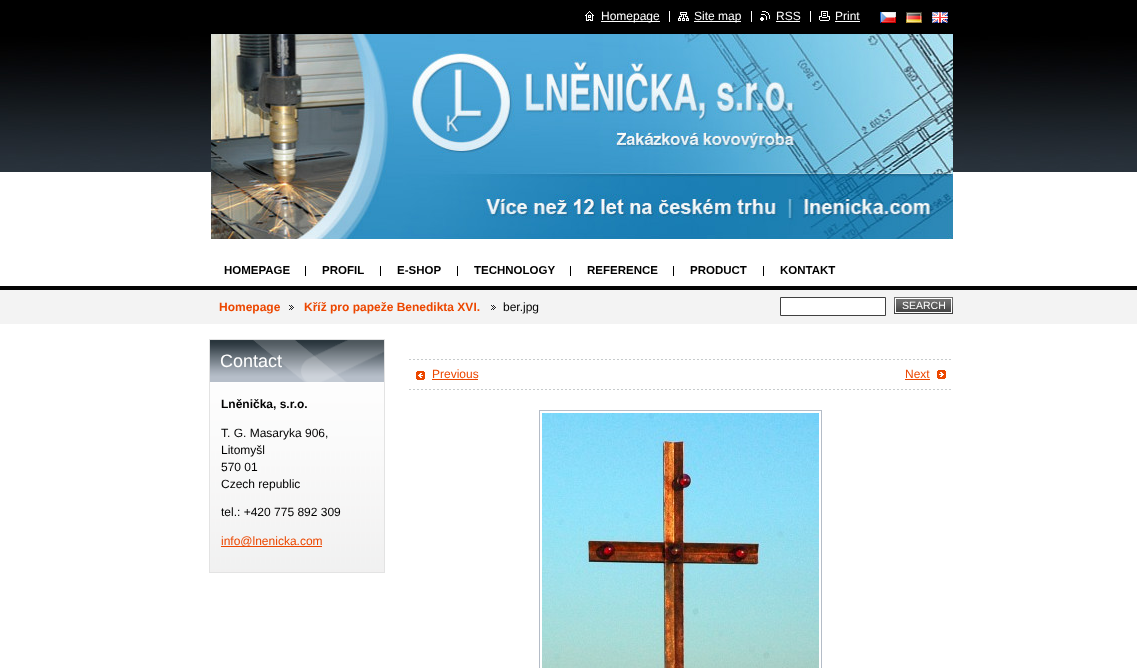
(async () => {
const canvas = document.querySelector("canvas")
canvas.width = 1137
canvas.height = 668
const c = canvas.getContext("2d")
c.miterLimit = 4
c.fontKerning = "normal"
function T(s,x,y){c.fillText(s,x,y)}
function R(x,y,w,h){c.fillRect(x,y,w,h)}
async function I(src,x,y,w,h){const img=new Image();img.src=src;await img.decode();c.drawImage(img,x,y,w,h)}
c.fillStyle="#fff"
R(0,0,1137,668)
c.fillStyle="#000"
R(0,0,1137,34)
await I("1.png",585,11,9,10)
c.fillStyle="#fff"
R(601,21,59,1)
c.font="12px Liberation Sans"
T("Homepage",601,20)
await I("2.png",678,11,11,10)
R(694,21,47,1)
T("Site map",694,20)
R(669,11,1,11)
await I("3.png",760,11,11,10)
T("RSS",776,20)
R(751,11,1,11)
R(776,21,24,1)
await I("4.png",819,11,11,10)
T("Print",835,20)
R(810,11,1,11)
R(835,21,25,1)
await I("5.png",880,12,16,11)
await I("6.png",906,12,16,11)
await I("7.png",932,12,16,11)
await I("8.png",0,34,1137,138)
await I("9.png",211,34,742,205)
c.font="bold 11.5px Liberation Sans"
c.fillStyle="#000"
T("HOMEPAGE",224,274)
R(305,266,1,10)
T("PROFIL",322,274)
R(380,266,1,10)
T("E-SHOP",397,274)
R(457,266,1,10)
T("TECHNOLOGY",474,274)
R(570,266,1,10)
T("REFERENCE",587,274)
R(673,266,1,10)
T("PRODUCT",690,274)
R(763,266,1,10)
T("KONTAKT",780,274)
c.fillStyle="#f3f3f3"
R(0,290,1137,34)
c.fillStyle="#050505"
R(0,286,1137,4)
c.font="bold 12px Liberation Sans"
c.fillStyle="#ec4700"
T("Homepage",219,311)
await I("10.png",289,305,5,5)
T("Kříž pro papeže Benedikta XVI.",304,311)
await I("10.png",491,305,5,5)
c.font="12px Liberation Sans"
c.fillStyle="#000"
T("ber.jpg",503,311)
c.fillStyle="#fff"
c.beginPath()
c.rect(780.5,297.5,105,18)
c.fill()
c.strokeStyle="#404040"
c.stroke()
c.fillStyle="#404040"
R(894,312,59,2)
await I("11.png",894,297,59,15)
await I("12.png",896,299,55,13)
c.strokeStyle="#fff"
c.strokeRect(895.5,298.5,56,14)
c.font="10.5px Liberation Sans"
c.fillStyle="#fff"
T("SEARCH",902,309)
await I("13.png",210,382,174,190)
c.strokeStyle="#e3e3e3"
c.strokeRect(209.5,339.5,175,233)
await I("14.png",210,340,174,42)
c.font="18px Liberation Sans"
T("Contact",220,367)
c.font="bold 12px Liberation Sans"
c.fillStyle="#000"
T("Lněnička, s.r.o.",221,408)
c.font="12px Liberation Sans"
T("T. G. Masaryka 906,",221,437)
T("Litomyšl",221,454)
T("570 01",221,471)
T("Czech republic",221,488)
T("tel.: +420 775 892 309",221,516)
c.fillStyle="#ec4700"
R(221,546,101,1)
T("info@lnenicka.com",221,545)
await I("15.png",409,359,542,1)
await I("15.png",409,389,542,1)
await I("16.png",416,371,9,9)
T("Previous",432,378)
R(432,379,46,1)
T("Next",905,378)
R(905,379,25,1)
await I("17.png",937,370,9,9)
c.strokeStyle="#b4bcc7"
c.strokeRect(539.5,410.5,282,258)
await I("18.png",542,413,277,255)
})()
